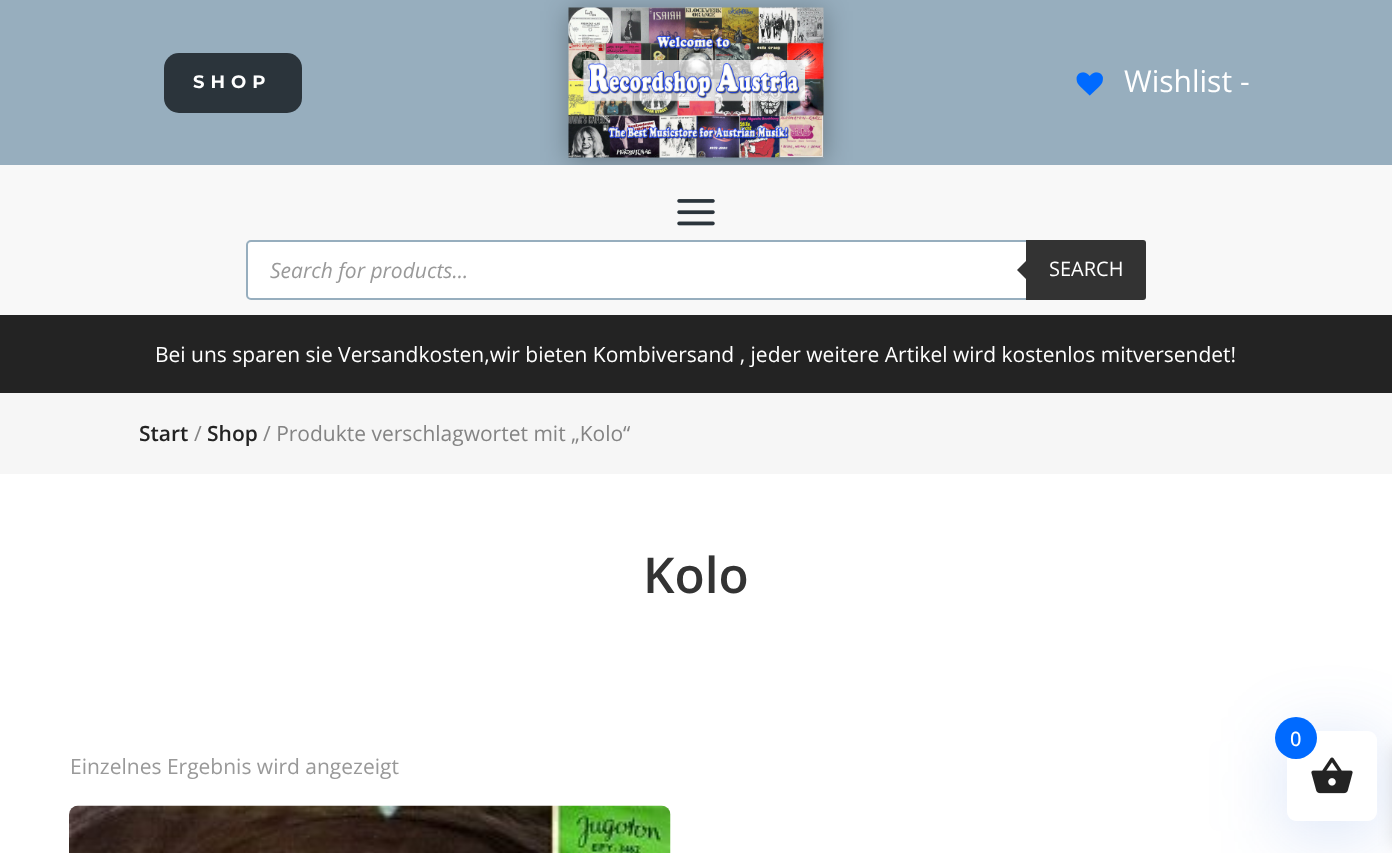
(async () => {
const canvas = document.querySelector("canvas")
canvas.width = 1392
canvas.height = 853
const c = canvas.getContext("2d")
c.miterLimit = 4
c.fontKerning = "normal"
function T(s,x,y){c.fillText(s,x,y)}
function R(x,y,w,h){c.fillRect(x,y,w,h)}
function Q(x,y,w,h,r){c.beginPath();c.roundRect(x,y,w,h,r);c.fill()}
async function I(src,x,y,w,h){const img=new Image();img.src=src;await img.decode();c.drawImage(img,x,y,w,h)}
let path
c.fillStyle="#fff"
R(0,0,1392,853)
c.fillStyle="#97aebe"
R(0,0,1392,165)
c.fillStyle="#2b343b"
Q(164,53,138,60,15)
c.letterSpacing="6px"
c.font="bold 18px Montserrat"
c.fillStyle="#fff"
T("SHOP",193,88)
c.fillStyle="#0000004d"
c.filter="blur(13.5px)"
c.beginPath()
c.rect(569,11,255,150)
c.fill()
c.filter="none"
await I("1.png",568,7,256,151)
await I("2.png",1076,72,27,24)
c.letterSpacing="0px"
c.font="30px Open Sans"
c.fillStyle="#fff"
T("Wishlist -",1124,92)
c.fillStyle="#f8f8f8"
R(0,165,1392,150)
await I("3.png",677,199,38,27)
c.fillStyle="#fff"
c.beginPath()
c.roundRect(247,241,898,58,4)
c.fill()
c.strokeStyle="#97aebe"
c.lineWidth=2
c.stroke()
c.font="italic 21px Open Sans"
c.fillStyle="#999"
T("Search for products...",270,278)
c.fillStyle="#333"
c.beginPath()
c.roundRect(1026,240,120,60,[0,3,3,0])
c.fill()
path = new Path2D("M1029 258v24l-12-12z")
c.fill(path)
c.font="20px Open Sans"
c.fillStyle="#fff"
T("SEARCH",1049,276)
c.fillStyle="#232323"
R(0,315,1392,78)
c.font="21px Open Sans"
c.fillStyle="#fff"
T("Bei uns sparen sie Versandkosten,wir bieten Kombiversand , jeder weitere Artikel wird kostenlos mitversendet!",155,362)
c.fillStyle="#f6f6f6"
R(0,393,1392,81)
c.font="600 21px Open Sans"
c.fillStyle="#232323"
T("Start",139,441)
c.font="21px Open Sans"
c.fillStyle="#848484"
T("/",194,441)
c.font="600 21px Open Sans"
c.fillStyle="#232323"
T("Shop",207,441)
c.font="21px Open Sans"
c.fillStyle="#848484"
T("/ Produkte verschlagwortet mit „Kolo“",263,441)
c.font="600 49.5px Open Sans"
c.fillStyle="#333"
T("Kolo",643,593)
c.font="21px Open Sans"
c.fillStyle="#999"
T("Einzelnes Ergebnis wird angezeigt",70,774)
await I("4.png",69,805,602,48)
c.fillStyle="#2964d833"
c.filter="blur(37.5px)"
c.beginPath()
c.roundRect(1287,741,90,90,9)
c.fill()
c.filter="none"
c.fillStyle="#0000001a"
c.filter="blur(7.5px)"
c.beginPath()
c.rect(1392,746,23,100)
c.fill()
c.filter="none"
c.fillStyle="#fff"
Q(1287,731,90,90,9)
await I("5.png",1311,757,42,37)
c.fillStyle="#006aff"
c.beginPath()
c.arc(1296,738,21,0,7)
c.fill()
c.font="500 20px Open Sans"
c.fillStyle="#fff"
T("0",1290,746)
})()
